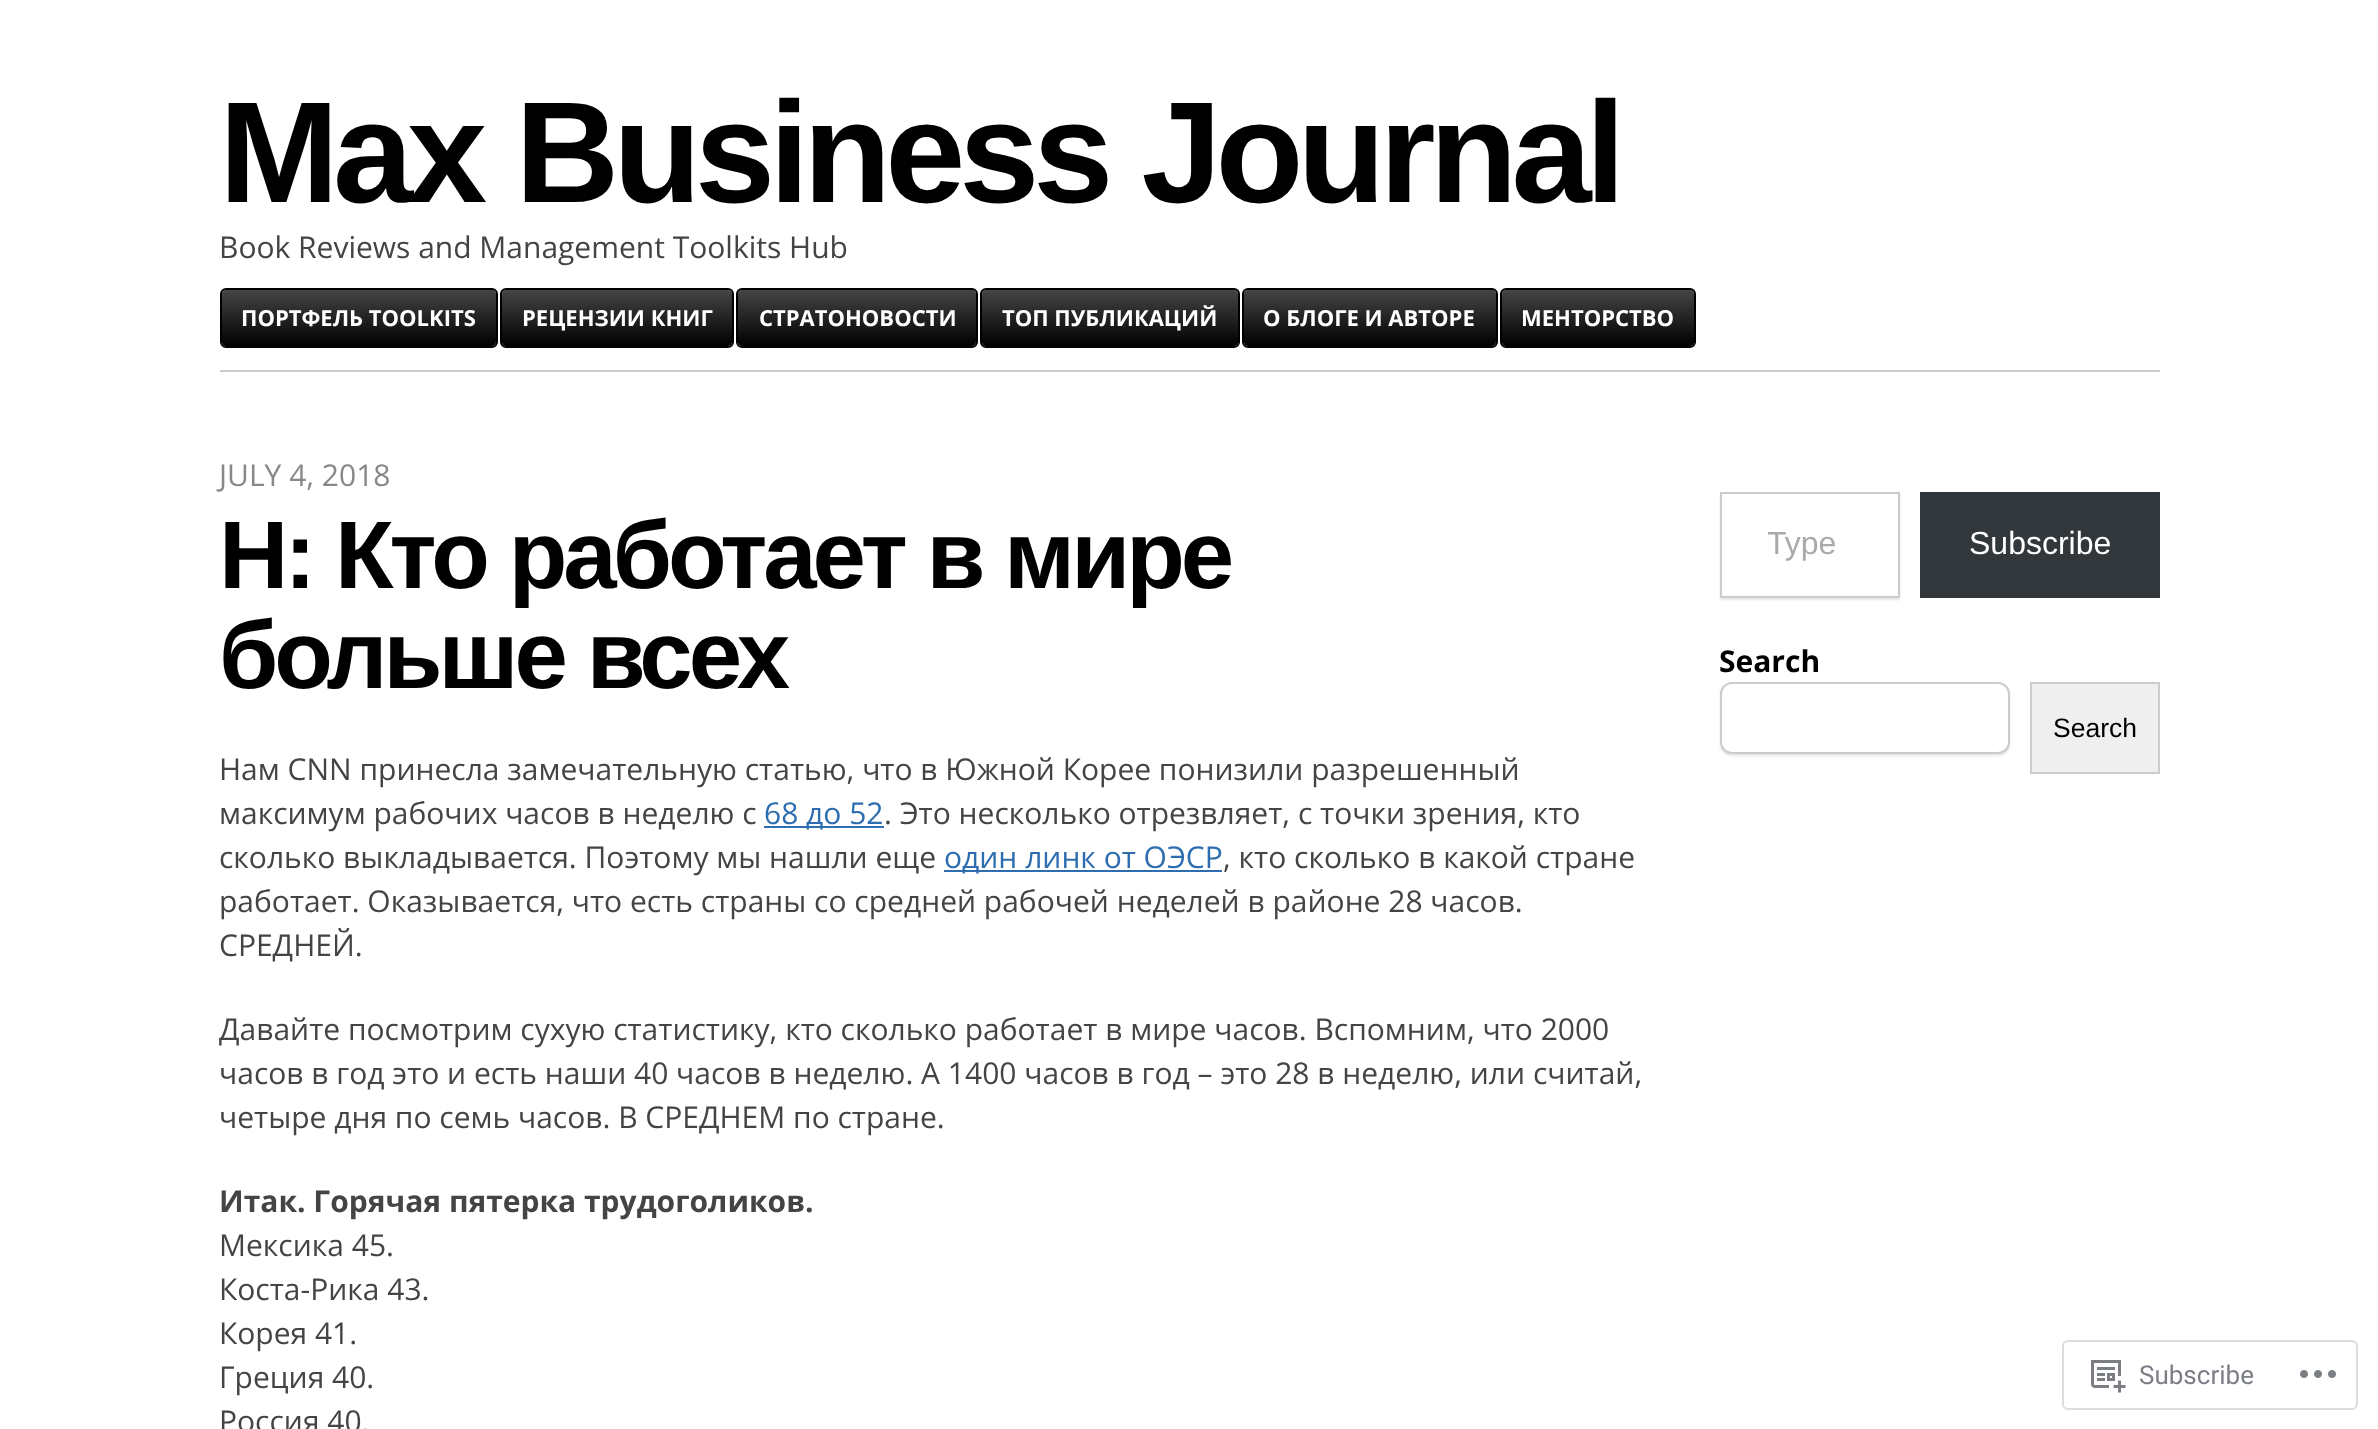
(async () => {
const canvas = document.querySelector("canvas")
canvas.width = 2378
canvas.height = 1429
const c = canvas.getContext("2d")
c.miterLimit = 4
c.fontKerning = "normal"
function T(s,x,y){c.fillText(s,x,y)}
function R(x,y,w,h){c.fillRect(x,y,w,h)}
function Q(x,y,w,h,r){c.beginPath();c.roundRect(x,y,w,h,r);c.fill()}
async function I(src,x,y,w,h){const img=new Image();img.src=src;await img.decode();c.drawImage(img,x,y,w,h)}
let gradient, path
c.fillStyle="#fff"
R(0,0,2378,1429)
c.fillStyle="#ccc"
R(220,370,1940,2)
c.letterSpacing="-6px"
c.font="bold 144px Liberation Sans"
c.fillStyle="#000"
T("Max Business Journal",219,202)
c.letterSpacing="0px"
c.font="30px Open Sans"
c.fillStyle="#444"
T("Book Reviews and Management Toolkits Hub",219,258)
gradient = c.createLinearGradient(222,290,222,346)
gradient.addColorStop(0,"#454545")
gradient.addColorStop(1,"#000")
c.fillStyle = gradient
Q(222,290,274,56,4)
c.beginPath()
c.roundRect(221,289,276,58,5)
c.strokeStyle="#000"
c.lineWidth=2
c.stroke()
c.font="bold 22px Open Sans"
c.fillStyle="#fff"
T("ПОРТФЕЛЬ TOOLKITS",241,326)
gradient = c.createLinearGradient(502,290,502,346)
gradient.addColorStop(0,"#454545")
gradient.addColorStop(1,"#000")
c.fillStyle = gradient
Q(502,290,230,56,4)
c.beginPath()
c.roundRect(501,289,232,58,5)
c.stroke()
c.fillStyle="#fff"
T("РЕЦЕНЗИИ КНИГ",522,326)
gradient = c.createLinearGradient(738,290,738,346)
gradient.addColorStop(0,"#454545")
gradient.addColorStop(1,"#000")
c.fillStyle = gradient
Q(738,290,238,56,4)
c.beginPath()
c.roundRect(737,289,240,58,5)
c.stroke()
c.fillStyle="#fff"
T("СТРАТОНОВОСТИ",759,326)
gradient = c.createLinearGradient(982,290,982,346)
gradient.addColorStop(0,"#454545")
gradient.addColorStop(1,"#000")
c.fillStyle = gradient
Q(982,290,256,56,4)
c.beginPath()
c.roundRect(981,289,258,58,5)
c.stroke()
c.fillStyle="#fff"
T("ТОП ПУБЛИКАЦИЙ",1002,326)
gradient = c.createLinearGradient(1244,290,1244,346)
gradient.addColorStop(0,"#454545")
gradient.addColorStop(1,"#000")
c.fillStyle = gradient
Q(1244,290,252,56,4)
c.beginPath()
c.roundRect(1243,289,254,58,5)
c.stroke()
c.fillStyle="#fff"
T("О БЛОГЕ И АВТОРЕ",1263,326)
gradient = c.createLinearGradient(1502,290,1502,346)
gradient.addColorStop(0,"#454545")
gradient.addColorStop(1,"#000")
c.fillStyle = gradient
Q(1502,290,192,56,4)
c.beginPath()
c.roundRect(1501,289,194,58,5)
c.stroke()
c.fillStyle="#fff"
T("МЕНТОРСТВО",1521,326)
c.font="30px Open Sans"
c.fillStyle="#888"
T("JULY 4, 2018",219,486)
c.letterSpacing="-4px"
c.font="bold 96px Liberation Sans"
c.fillStyle="#000"
T("Н: Кто работает в мире",219,588)
T("больше всех",219,688)
c.letterSpacing="0px"
c.font="30px Open Sans"
c.fillStyle="#444"
T("Нам CNN принесла замечательную статью, что в Южной Корее понизили разрешенный",219,780)
T("максимум рабочих часов в неделю с",219,824)
c.fillStyle="#2e6eb0"
R(764,826,120,2)
T("68 до 52",764,824)
c.fillStyle="#444"
T(". Это несколько отрезвляет, с точки зрения, кто",884,824)
T("сколько выкладывается. Поэтому мы нашли еще",219,868)
c.fillStyle="#2e6eb0"
R(944,870,278,2)
T("один линк от ОЭСР",944,868)
c.fillStyle="#444"
T(", кто сколько в какой стране",1223,868)
T("работает. Оказывается, что есть страны со средней рабочей неделей в районе 28 часов.",219,912)
T("СРЕДНЕЙ.",219,956)
T("Давайте посмотрим сухую статистику, кто сколько работает в мире часов. Вспомним, что 2000",219,1040)
T("часов в год это и есть наши 40 часов в неделю. А 1400 часов в год – это 28 в неделю, или считай,",219,1084)
T("четыре дня по семь часов. В СРЕДНЕМ по стране.",219,1128)
c.font="bold 30px Open Sans"
T("Итак. Горячая пятерка трудоголиков.",219,1212)
c.font="30px Open Sans"
T("Мексика 45.",219,1256)
T("Коста-Рика 43.",219,1300)
T("Корея 41.",219,1344)
T("Греция 40.",219,1388)
T("Россия 40.",219,1432)
c.save()
path = new Path2D("M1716 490h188v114h-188zm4 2h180v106h-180z")
c.clip(path,"evenodd")
c.fillStyle="#0000001a"
c.filter="blur(1px)"
c.beginPath()
c.rect(1720,494,180,106)
c.fill()
c.filter="none"
c.restore()
c.strokeStyle="#ccc"
c.strokeRect(1721,493,178,104)
c.save()
c.beginPath()
c.rect(1768,526,84,36)
c.clip()
c.font="32px Liberation Sans"
c.fillStyle="#aaa"
T("Type",1767,554)
c.restore()
c.fillStyle="#32373c"
R(1920,492,240,106)
c.font="32px Liberation Sans"
c.fillStyle="#fff"
T("Subscribe",1969,554)
c.font="bold 30px Open Sans"
c.fillStyle="#000"
T("Search",1719,672)
c.fillStyle="#0000001a"
c.filter="blur(1px)"
c.beginPath()
c.roundRect(1720,684,290,72,12)
c.fill()
c.filter="none"
c.fillStyle="#fff"
c.beginPath()
c.roundRect(1721,683,288,70,11)
c.fill()
c.stroke()
c.fillStyle="#efefef"
c.beginPath()
c.rect(2031,683,128,90)
c.fill()
c.stroke()
c.font="26.5px Liberation Sans"
c.fillStyle="#000"
T("Search",2053,737)
c.beginPath()
c.roundRect(2063,1341,294,68,5)
c.strokeStyle="#dddddf"
c.stroke()
await I("1.png",2091,1360,35,33)
c.font="26px Roboto"
c.fillStyle="#7b7f85"
T("Subscribe",2139,1384)
await I("2.png",2300,1370,36,8)
})()
